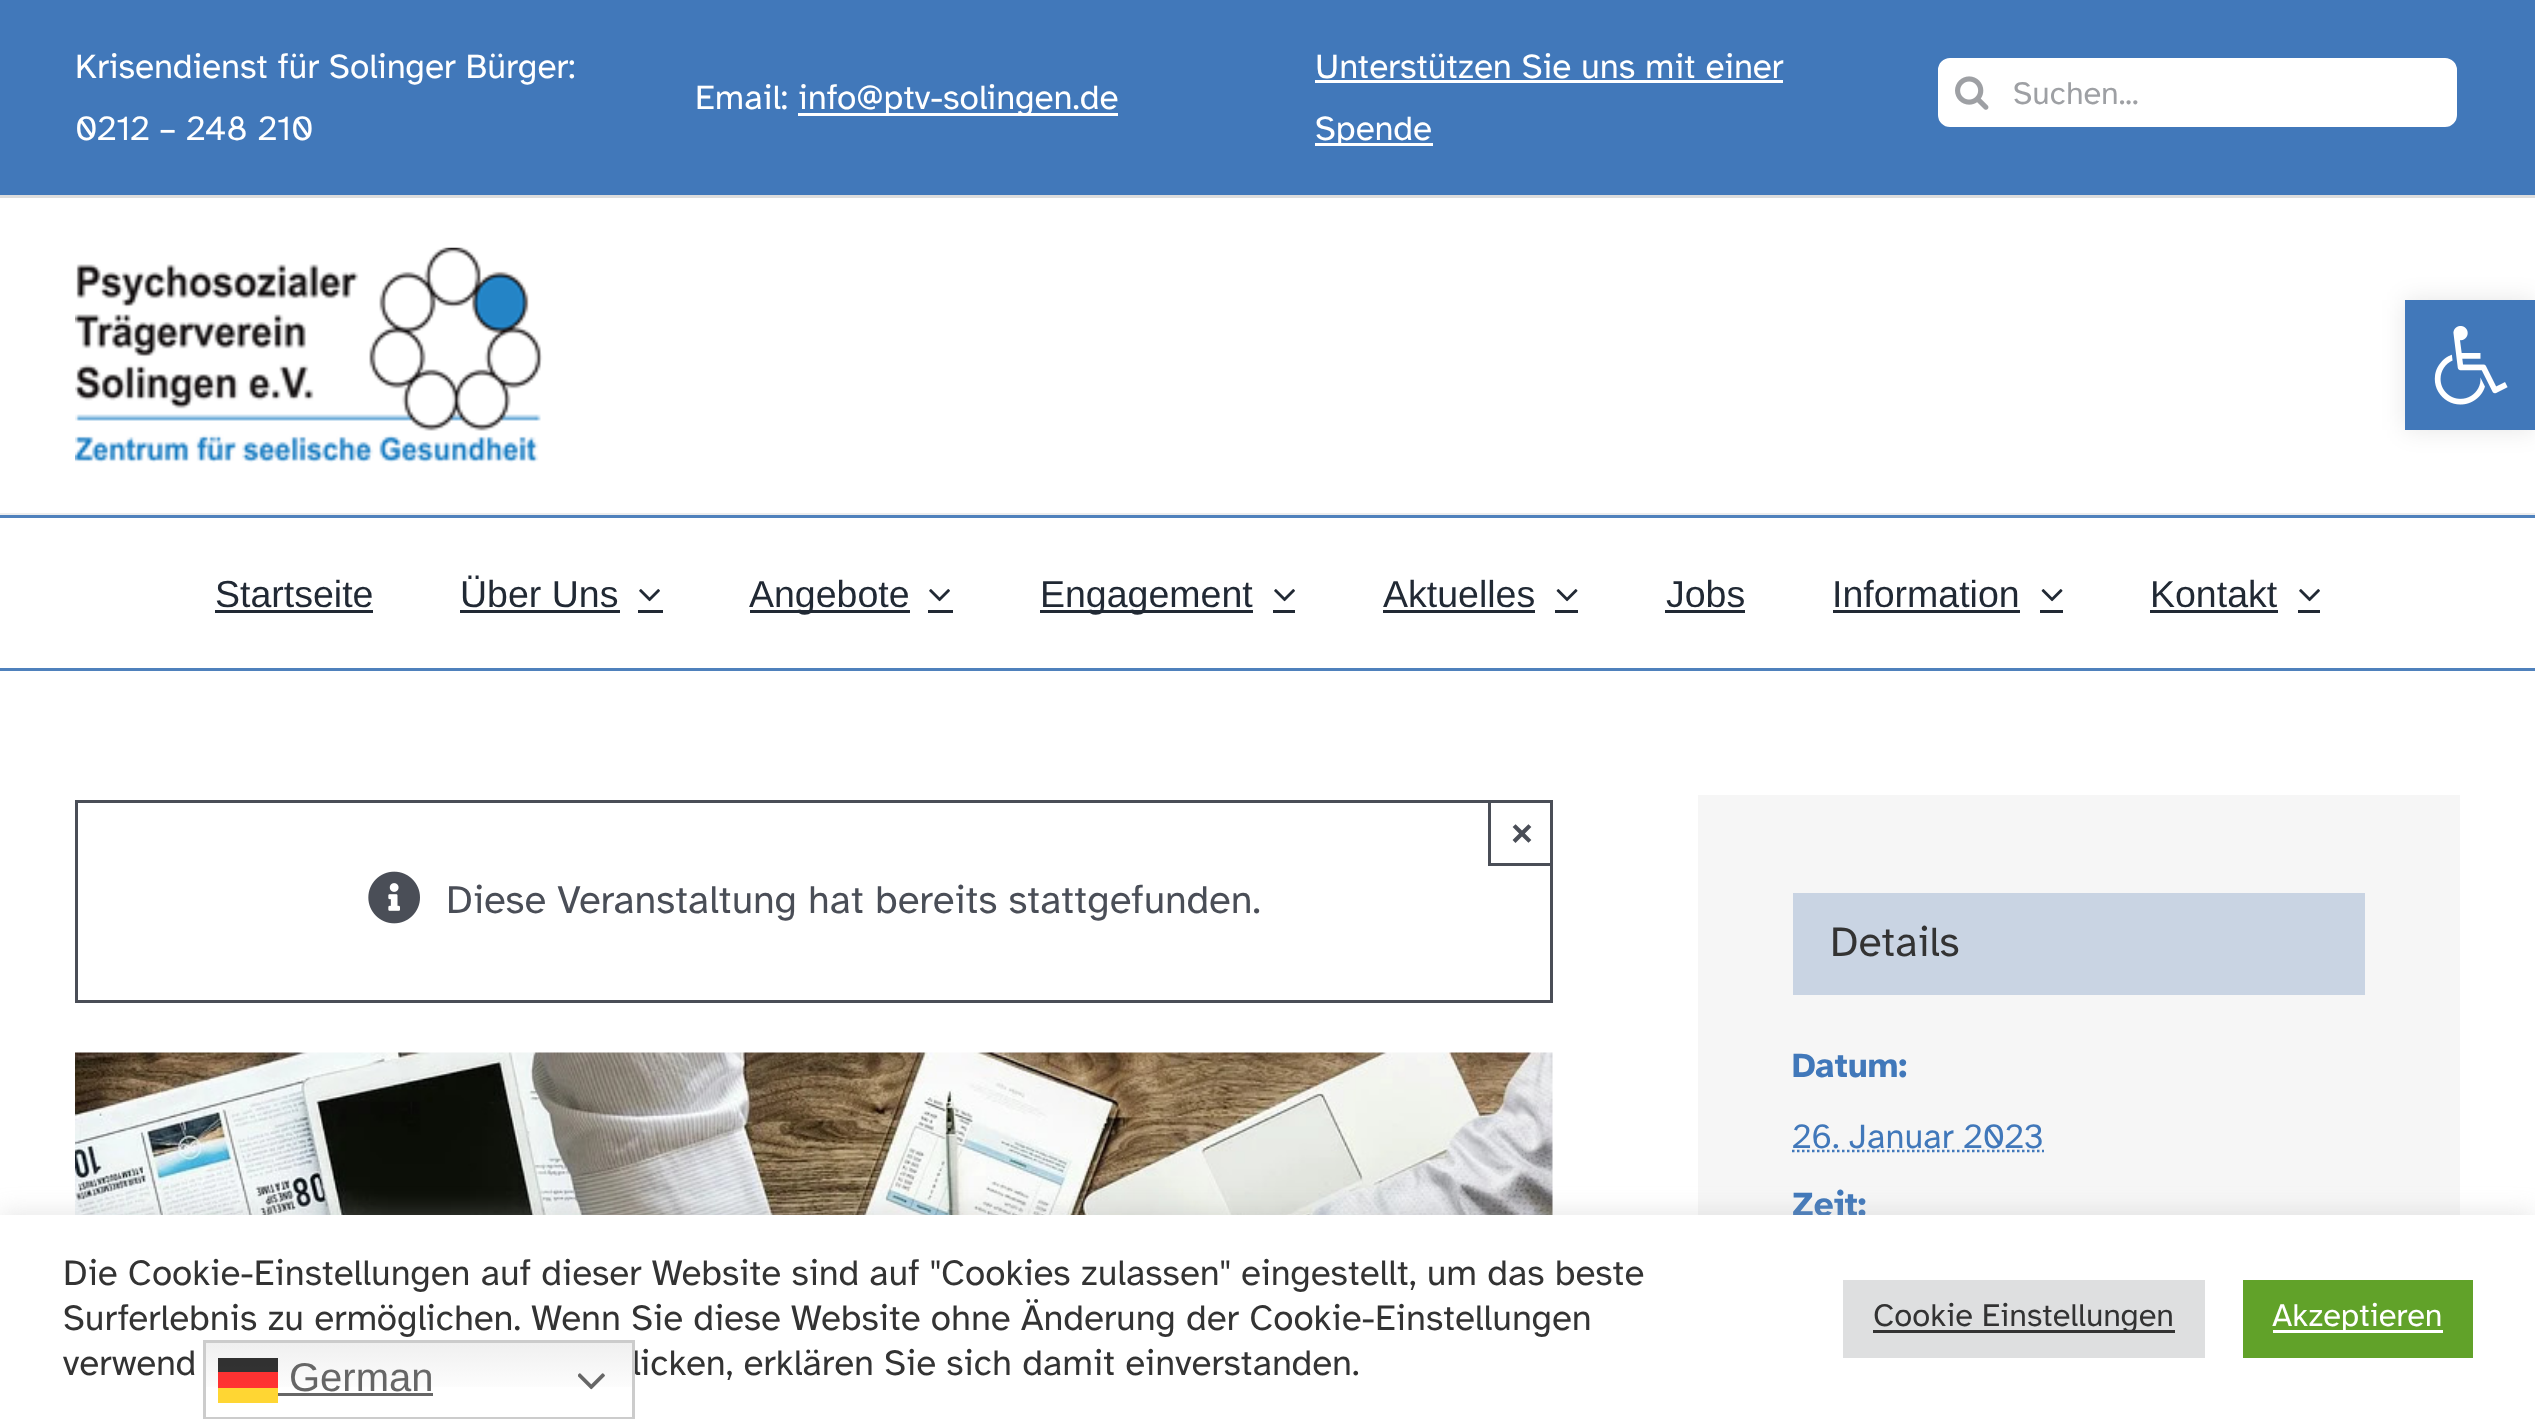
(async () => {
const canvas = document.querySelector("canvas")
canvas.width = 2535
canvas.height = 1419
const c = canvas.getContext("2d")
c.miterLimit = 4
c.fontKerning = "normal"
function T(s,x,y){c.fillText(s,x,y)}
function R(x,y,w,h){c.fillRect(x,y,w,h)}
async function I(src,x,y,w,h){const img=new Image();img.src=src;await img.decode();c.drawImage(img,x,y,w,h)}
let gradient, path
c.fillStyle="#fff"
R(0,0,2535,1419)
c.fillStyle="#4178ba"
R(0,0,2535,195)
c.fillStyle="#ddd"
R(0,195,2535,3)
c.font="35px Atkinson Hyperlegible"
c.fillStyle="#fff"
T("Krisendienst für Solinger Bürger:",75,78)
T("0212 – 248 210",75,140)
T("Email:",695,109)
R(798,113,320,3)
T("info@ptv-solingen.de",798,109)
T("Unterstützen Sie uns mit einer",1315,78)
R(1315,80,468,3)
R(1315,143,118,3)
T("Spende",1315,140)
c.beginPath()
c.roundRect(1936.5,56.5,522,72,13.5)
c.fill()
c.strokeStyle="#4178ba"
c.lineWidth=3
c.stroke()
await I("1.png",1955,76,34,34)
c.font="32.5px Atkinson Hyperlegible"
c.fillStyle="#9ea0a4"
T("Suchen...",2013,104)
c.fillStyle="#ededed"
R(0,513,2535,2)
await I("2.png",75,247,468,216)
c.fillStyle="#4f81bc"
R(0,515,2535,3)
R(0,668,2535,3)
c.font="37.5px Liberation Sans"
c.fillStyle="#212934"
T("Startseite",215,607)
R(215,610,158,3)
T("Über Uns",460,607)
R(460,610,160,3)
R(638,610,25,3)
await I("3.png",639,589,21,13)
R(750,610,160,3)
T("Angebote",749,607)
R(928,610,25,3)
await I("3.png",929,589,21,13)
R(1040,610,213,3)
T("Engagement",1040,607)
R(1273,610,22,3)
await I("3.png",1274,589,21,13)
T("Aktuelles",1383,607)
R(1383,610,152,3)
R(1555,610,23,3)
await I("4.png",1556,589,22,13)
T("Jobs",1666,607)
R(1665,610,80,3)
T("Information",1832,607)
R(1833,610,187,3)
R(2040,610,23,3)
await I("4.png",2041,589,22,13)
T("Kontakt",2150,607)
R(2150,610,128,3)
R(2298,610,22,3)
await I("3.png",2299,589,21,13)
c.strokeStyle="#4a4e57"
c.strokeRect(76.5,801.5,1475,200)
c.fillStyle="#4a4e57"
R(1488,863,65,3)
R(1488,800,3,65)
c.font="bold 37.5px Liberation Sans"
T("×",1511,846)
await I("5.png",368,871,52,53)
c.font="40px Atkinson Hyperlegible"
T("Diese Veranstaltung hat bereits stattgefunden.",446,913)
await I("6.png",75,1052,1478,163)
c.fillStyle="#f6f6f6"
R(1698,795,762,420)
c.fillStyle="#c9d4e3"
R(1793,893,572,102)
c.font="42.5px Atkinson Hyperlegible"
c.fillStyle="#333"
T("Details",1830,956)
c.font="bold 35px Atkinson Hyperlegible"
c.fillStyle="#4178ba"
T("Datum:",1792,1077)
c.font="35px Atkinson Hyperlegible"
T("26. Januar 2023",1792,1148)
path = new Path2D("M1792 1151h252")
c.strokeStyle="#4178ba"
c.lineWidth=2.5
c.setLineDash([2.5,2.5])
c.stroke(path)
c.font="bold 35px Atkinson Hyperlegible"
T("Zeit:",1792,1216)
c.fillStyle="#0000001a"
c.filter="blur(12.5px)"
c.beginPath()
c.rect(2405,300,130,130)
c.fill()
c.filter="none"
c.fillStyle="#4178ba"
R(2405,300,130,130)
await I("7.png",2434,326,74,79)
c.fillStyle="#acabab4d"
c.filter="blur(12.5px)"
c.beginPath()
c.rect(0,1213,2535,205)
c.fill()
c.filter="none"
c.fillStyle="#fff"
R(0,1215,2535,204)
c.font="36.65px Atkinson Hyperlegible"
c.fillStyle="#333"
T("Die Cookie-Einstellungen auf dieser Website sind auf \"Cookies zulassen\" eingestellt, um das beste",63,1285)
T("Surferlebnis zu ermöglichen. Wenn Sie diese Website ohne Änderung der Cookie-Einstellungen",63,1330)
T("verwend",63,1375)
T("licken, erklären Sie sich damit einverstanden.",632,1375)
c.fillStyle="#dedfe0"
R(1843,1280,362,78)
c.fillStyle="#333"
R(1873,1330,302,3)
c.font="32.5px Atkinson Hyperlegible"
T("Cookie Einstellungen",1873,1326)
c.fillStyle="#61a229"
R(2243,1280,230,78)
c.fillStyle="#fff"
R(2273,1330,170,3)
T("Akzeptieren",2272,1326)
gradient = c.createLinearGradient(419,1340,419,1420)
gradient.addColorStop(0,"#efefef")
gradient.addColorStop(.7,"#fff")
c.fillStyle = gradient
R(206,1343,426,44)
c.strokeStyle="#ccc"
c.lineWidth=3
c.setLineDash([])
c.strokeRect(204.5,1341.5,429,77)
c.fillStyle="#000000cc"
R(218,1358,60,14)
c.font="40px Liberation Sans"
c.fillStyle="#666"
T("German",289,1391)
R(278,1393,155,3)
c.fillStyle="#ff0000cc"
R(218,1372,60,16)
await I("8.png",578,1373,27,17)
c.fillStyle="#ffd633"
R(218,1388,60,15)
})()
